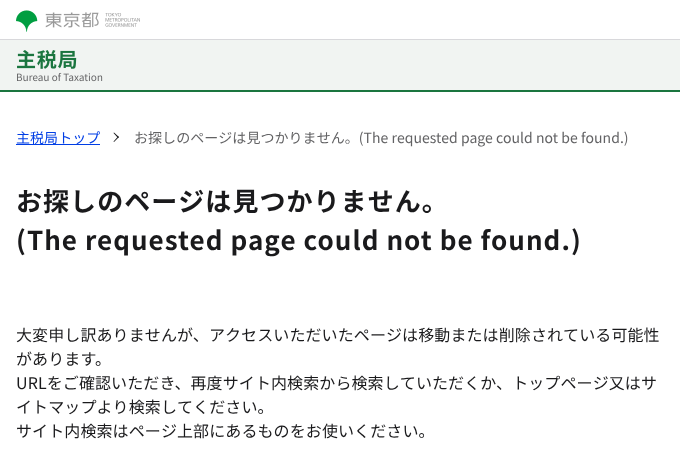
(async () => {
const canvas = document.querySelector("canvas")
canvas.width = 680
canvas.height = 449
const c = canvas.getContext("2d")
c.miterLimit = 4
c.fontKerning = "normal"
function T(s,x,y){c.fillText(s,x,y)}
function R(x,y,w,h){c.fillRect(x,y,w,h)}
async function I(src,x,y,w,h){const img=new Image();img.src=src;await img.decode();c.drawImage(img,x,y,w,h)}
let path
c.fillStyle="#fff"
R(0,0,680,449)
c.fillStyle="#d8d8db"
R(0,39,680,1)
await I("1.png",16,10,124,22)
c.fillStyle="#f1f4f2"
R(0,40,680,50)
await I("2.png",17,50,86,32)
c.fillStyle="#1a753f"
R(0,90,680,2)
c.fillStyle="#003ee5"
R(16,144,84,1)
c.letterSpacing="0.05px"
c.font="14px Noto Sans JP"
T("主税局トップ",16,143)
c.fillStyle="#1a1a1c"
path = new Path2D("M114 132.5l5 4.5l-1 1l-4.5-5z")
c.fill(path)
path = new Path2D("M118 136.5l1 .5l-5 5l-.5-.5z")
c.fill(path)
c.fillStyle="#626264"
T("お探しのページは見つかりません。(The requested page could not be found.)",134,143)
c.letterSpacing="1.05px"
c.font="bold 26px Noto Sans JP"
c.fillStyle="#1a1a1c"
T("お探しのページは見つかりません。",16,211)
T("(The requested page could not be found.)",16,250)
c.letterSpacing="0.1px"
c.font="16px Noto Sans JP"
T("大変申し訳ありませんが、アクセスいただいたページは移動または削除されている可能性",16,341)
T("があります。",16,365)
T("URLをご確認いただき、再度サイト内検索から検索していただくか、トップページ又はサ",16,389)
T("イトマップより検索してください。",16,413)
T("サイト内検索はページ上部にあるものをお使いください。",16,437)
})()
